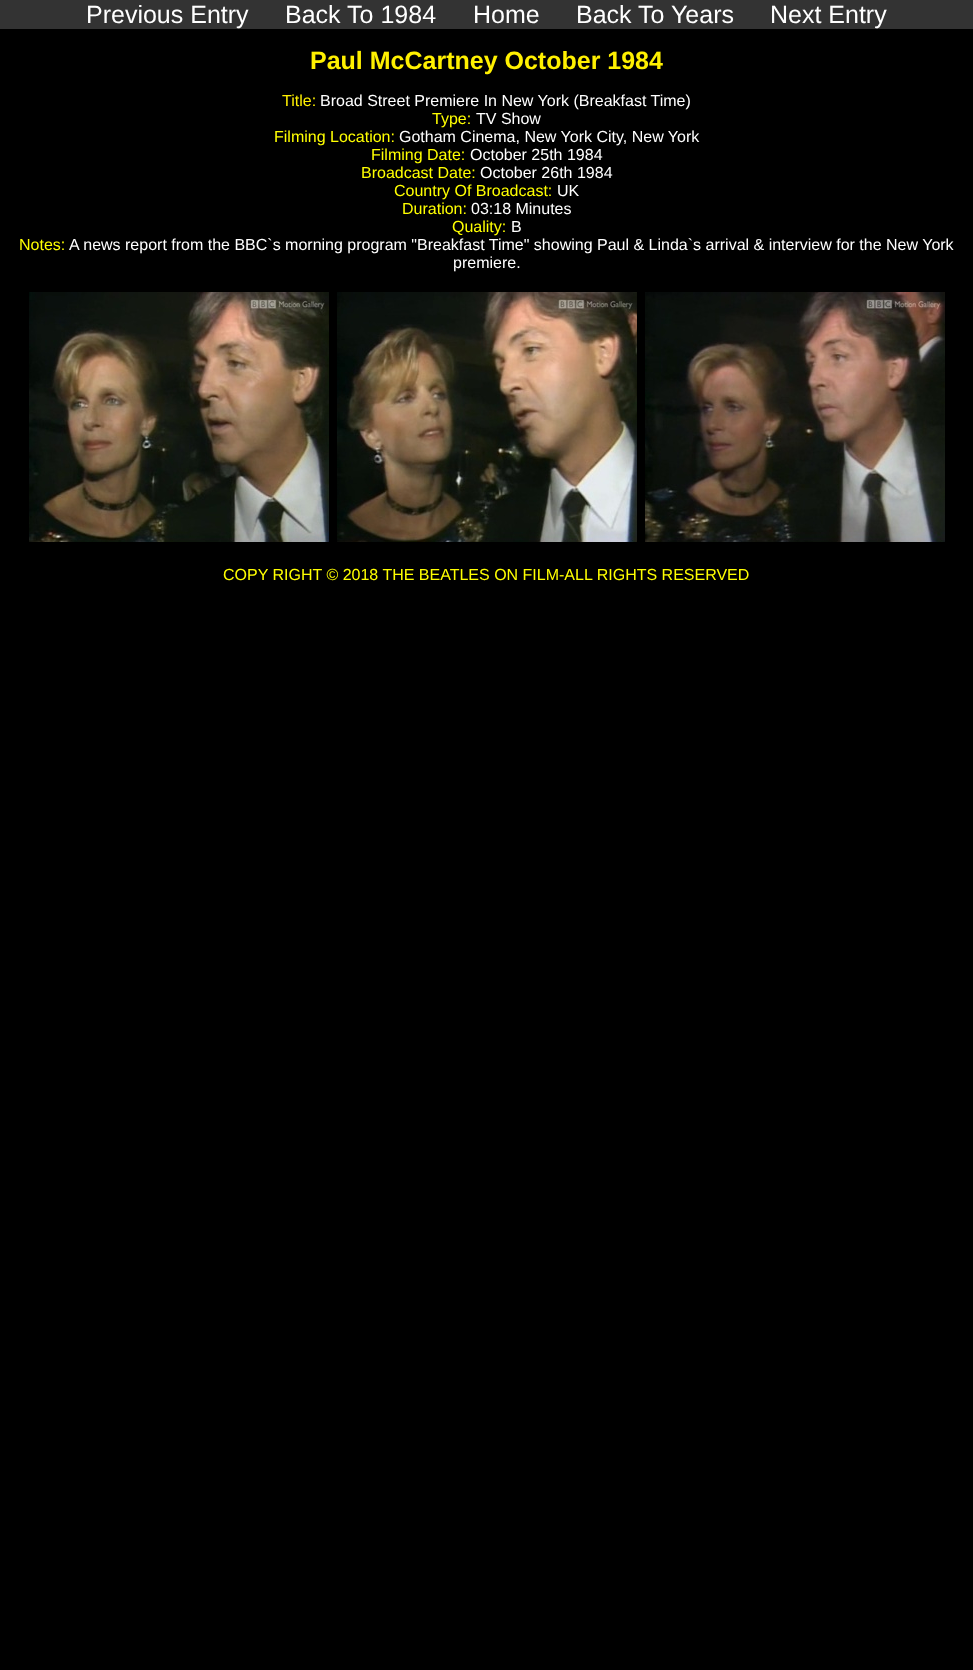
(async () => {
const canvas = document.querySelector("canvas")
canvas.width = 973
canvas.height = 1670
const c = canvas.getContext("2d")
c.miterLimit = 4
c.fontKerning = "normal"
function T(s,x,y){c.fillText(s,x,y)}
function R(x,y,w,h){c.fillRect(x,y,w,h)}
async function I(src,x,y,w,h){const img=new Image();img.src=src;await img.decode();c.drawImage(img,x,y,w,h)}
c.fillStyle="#000"
R(0,0,973,1670)
c.fillStyle="#333"
R(0,0,973,29)
c.font="25px Liberation Sans"
c.fillStyle="#fff"
T("Previous Entry",86,23)
T("Back To 1984",285,23)
T("Home",473,23)
T("Back To Years",576,23)
T("Next Entry",770,23)
c.font="bold 25px Liberation Sans"
c.fillStyle="#fff000"
T("Paul McCartney October 1984",310,69)
c.font="16px Liberation Sans"
T("Title:",282,106)
c.fillStyle="#fff"
T("Broad Street Premiere In New York (Breakfast Time)",320,106)
c.fillStyle="#ff0"
T("Type:",432,124)
c.fillStyle="#fff"
T("TV Show",476,124)
c.fillStyle="#ff0"
T("Filming Location:",274,142)
c.fillStyle="#fff"
T("Gotham Cinema, New York City, New York",399,142)
c.fillStyle="#ff0"
T("Filming Date:",371,160)
c.fillStyle="#fff"
T("October 25th 1984",470,160)
c.fillStyle="#ff0"
T("Broadcast Date:",361,178)
c.fillStyle="#fff"
T("October 26th 1984",480,178)
c.fillStyle="#ff0"
T("Country Of Broadcast:",394,196)
c.fillStyle="#fff"
T("UK",557,196)
c.fillStyle="#ff0"
T("Duration:",402,214)
c.fillStyle="#fff"
T("03:18 Minutes",471,214)
c.fillStyle="#ff0"
T("Quality:",452,232)
c.fillStyle="#fff"
T("B",511,232)
c.fillStyle="#ff0"
T("Notes:",19,250)
c.fillStyle="#fff"
T("A news report from the BBC`s morning program \"Breakfast Time\" showing Paul & Linda`s arrival & interview for the New York",69,250)
T("premiere.",453,268)
await I("1.png",29,292,300,250)
await I("2.png",337,292,300,250)
await I("3.png",645,292,300,250)
c.fillStyle="#ff0"
T("COPY RIGHT © 2018 THE BEATLES ON FILM-ALL RIGHTS RESERVED",223,580)
})()
